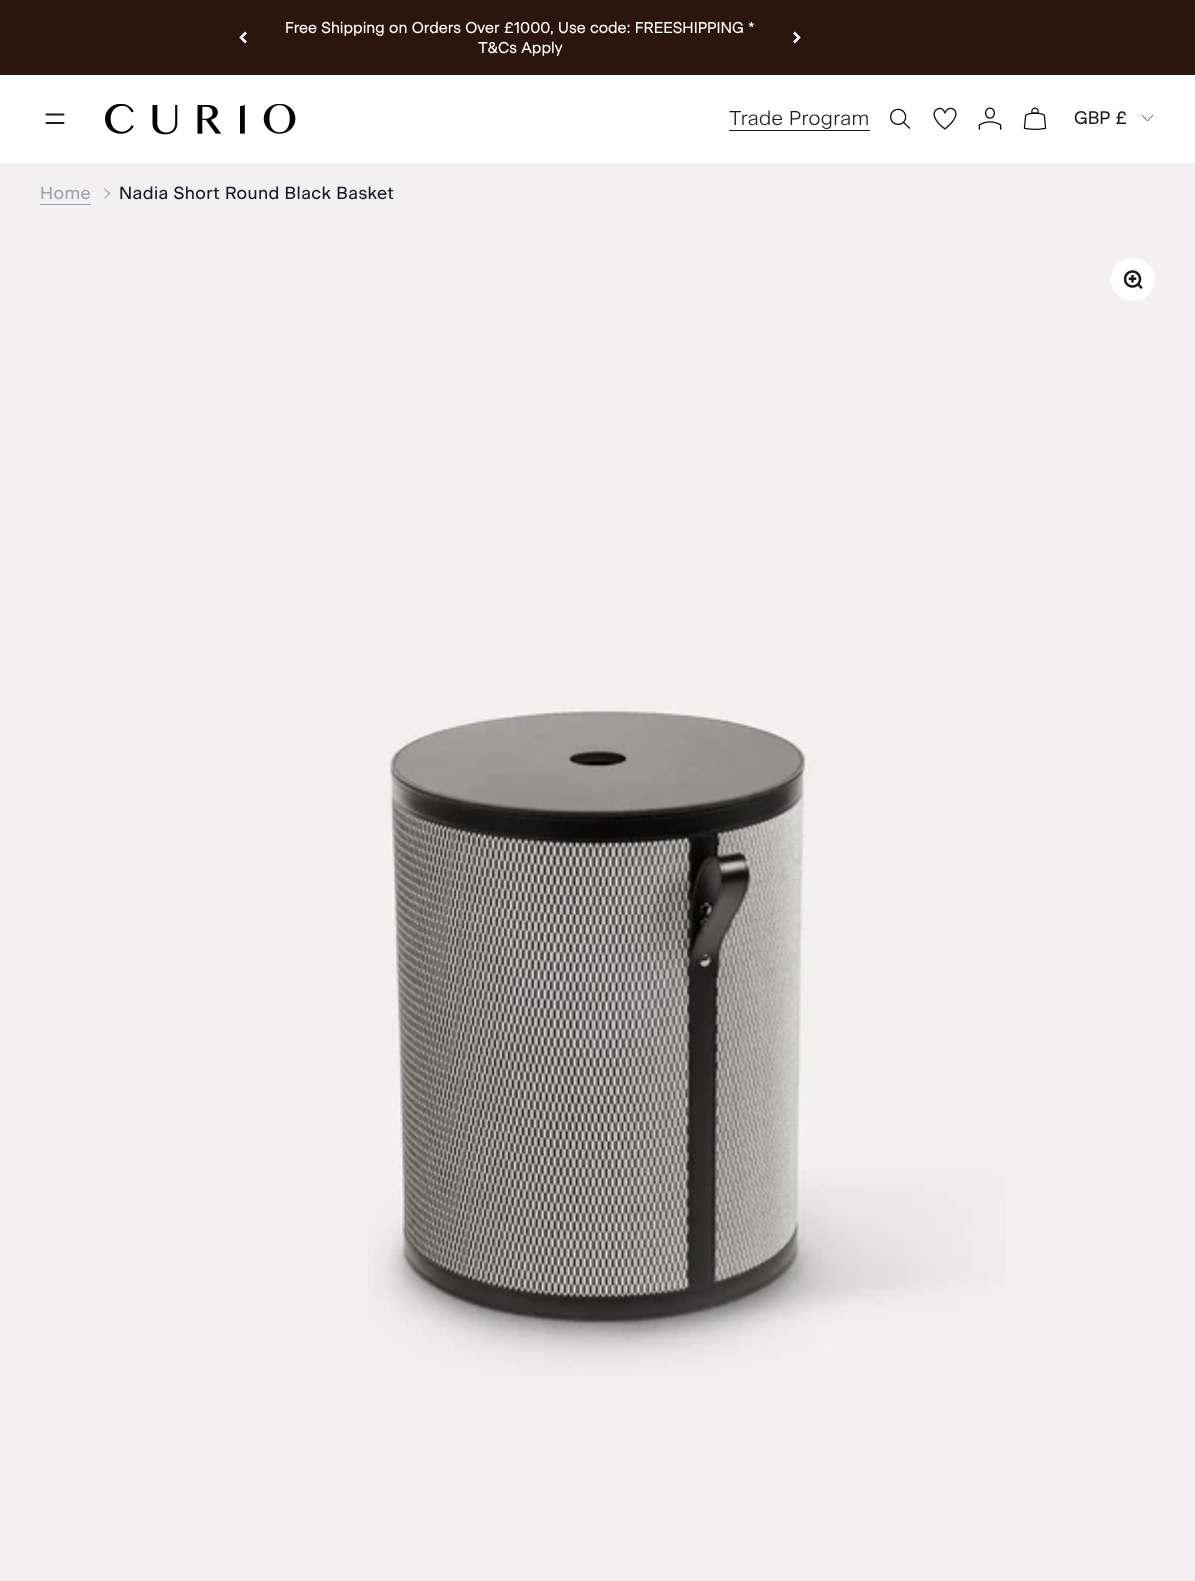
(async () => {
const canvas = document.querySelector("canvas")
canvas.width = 1195
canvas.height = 1581
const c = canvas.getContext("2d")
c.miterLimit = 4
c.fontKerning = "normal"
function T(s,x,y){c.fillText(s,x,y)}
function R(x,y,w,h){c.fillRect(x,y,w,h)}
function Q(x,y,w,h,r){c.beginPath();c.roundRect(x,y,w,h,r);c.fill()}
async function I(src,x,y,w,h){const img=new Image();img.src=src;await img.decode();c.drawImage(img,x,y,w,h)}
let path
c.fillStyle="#fff"
R(0,0,1195,1581)
c.fillStyle="#2b150c"
R(0,0,1195,75)
path = new Path2D("M246 32.5l-5 5l5 5")
c.strokeStyle="#fff"
c.lineWidth=2.5
c.stroke(path)
c.letterSpacing="0.4px"
c.font="bold 15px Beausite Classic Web"
c.fillStyle="#fff"
T("Free Shipping on Orders Over £1000, Use code: FREESHIPPING *",285,33)
T("T&Cs Apply",478,53)
path = new Path2D("M794 42.5l5-5l-5-5")
c.stroke(path)
path = new Path2D("M46.5 114.5h17m-17 8.5h17")
c.strokeStyle="#1a1a1a"
c.lineWidth=2.1
c.lineCap="round"
c.lineJoin="round"
c.stroke(path)
await I("1.png",105,104,191,31)
c.font="300 20px Beausite Classic Web"
c.fillStyle="#1a1a1a"
T("Trade Program",729,125)
R(729,130,141,1)
await I("2.png",890,108,20,22)
await I("3.png",933,107,24,23)
await I("4.png",978,107,24,23)
await I("5.png",1023,107,24,23)
c.font="bold 17.5px Beausite Classic Web"
T("GBP £",1074,124)
path = new Path2D("M1142 115l5.5 6l5.5-6")
c.lineWidth=0.7
c.lineCap="butt"
c.lineJoin="miter"
c.stroke(path)
c.fillStyle="#f3f0f1"
R(0,163,1195,1418)
c.font="17.5px Beausite Classic Web"
c.fillStyle="#9ca3af"
T("Home",40,199)
R(40,204,51,1)
path = new Path2D("M104.5 188l6 5.5l-1 1l-5.5-5.5z")
c.fill(path)
path = new Path2D("M109.5 192.5l1 1l-6 5.5l-.5-.5z")
c.fill(path)
c.fillStyle="#111827"
T("Nadia Short Round Black Basket",119,199)
c.fillStyle="#fff"
Q(1111,258,44,43,21.5)
await I("6.png",1124,270,19,19)
await I("7.png",366,707,639,670)
})()
